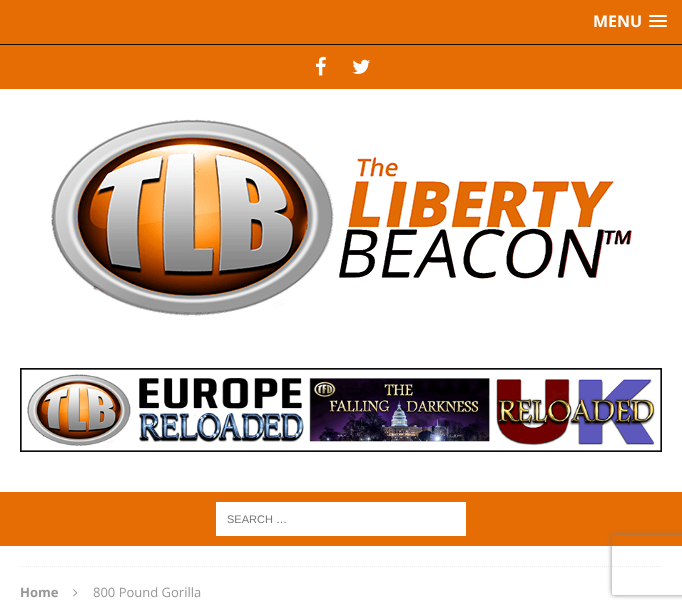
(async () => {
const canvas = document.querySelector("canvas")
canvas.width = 682
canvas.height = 609
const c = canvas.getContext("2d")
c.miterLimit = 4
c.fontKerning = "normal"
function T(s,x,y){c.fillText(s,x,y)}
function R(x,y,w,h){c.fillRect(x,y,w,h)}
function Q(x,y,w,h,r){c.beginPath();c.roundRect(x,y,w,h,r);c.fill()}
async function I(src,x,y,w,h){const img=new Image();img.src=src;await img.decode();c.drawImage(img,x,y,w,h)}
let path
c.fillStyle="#e66c04"
R(0,0,682,609)
c.fillStyle="#1f0e00"
R(0,44,682,1)
c.font="bold 16px Open Sans"
c.fillStyle="#fff"
T("MENU",593,27)
Q(649,15,18,2,1)
Q(649,20,18,2,1)
Q(649,25,18,2,1)
await I("1.png",316,56,10,20)
await I("2.png",352,59,18,15)
R(0,89,682,403)
await I("3.png",51,119,581,197)
await I("4.png",20,368,642,84)
R(216,502,250,34)
c.font="11px Liberation Sans"
c.fillStyle="#757575"
T("SEARCH …",227,523)
c.fillStyle="#fff"
R(0,546,682,63)
path = new Path2D("M20 566.5h642")
c.strokeStyle="#ebebeb"
c.setLineDash([1,1])
c.stroke(path)
c.font="bold 13px Open Sans"
c.fillStyle="#979797"
T("Home",20,597)
await I("5.png",73,589,5,8)
c.font="13px Open Sans"
T("800 Pound Gorilla",93,597)
c.save()
path = new Path2D("M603 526h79v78h-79zm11 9h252c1 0 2 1 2 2v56c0 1-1 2-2 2h-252c-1 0-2-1-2-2v-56c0-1 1-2 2-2z")
c.clip(path,"evenodd")
c.fillStyle="#808080"
c.filter="blur(2.5px)"
c.beginPath()
c.roundRect(612,535,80,60,2)
c.fill()
c.filter="none"
c.restore()
})()
